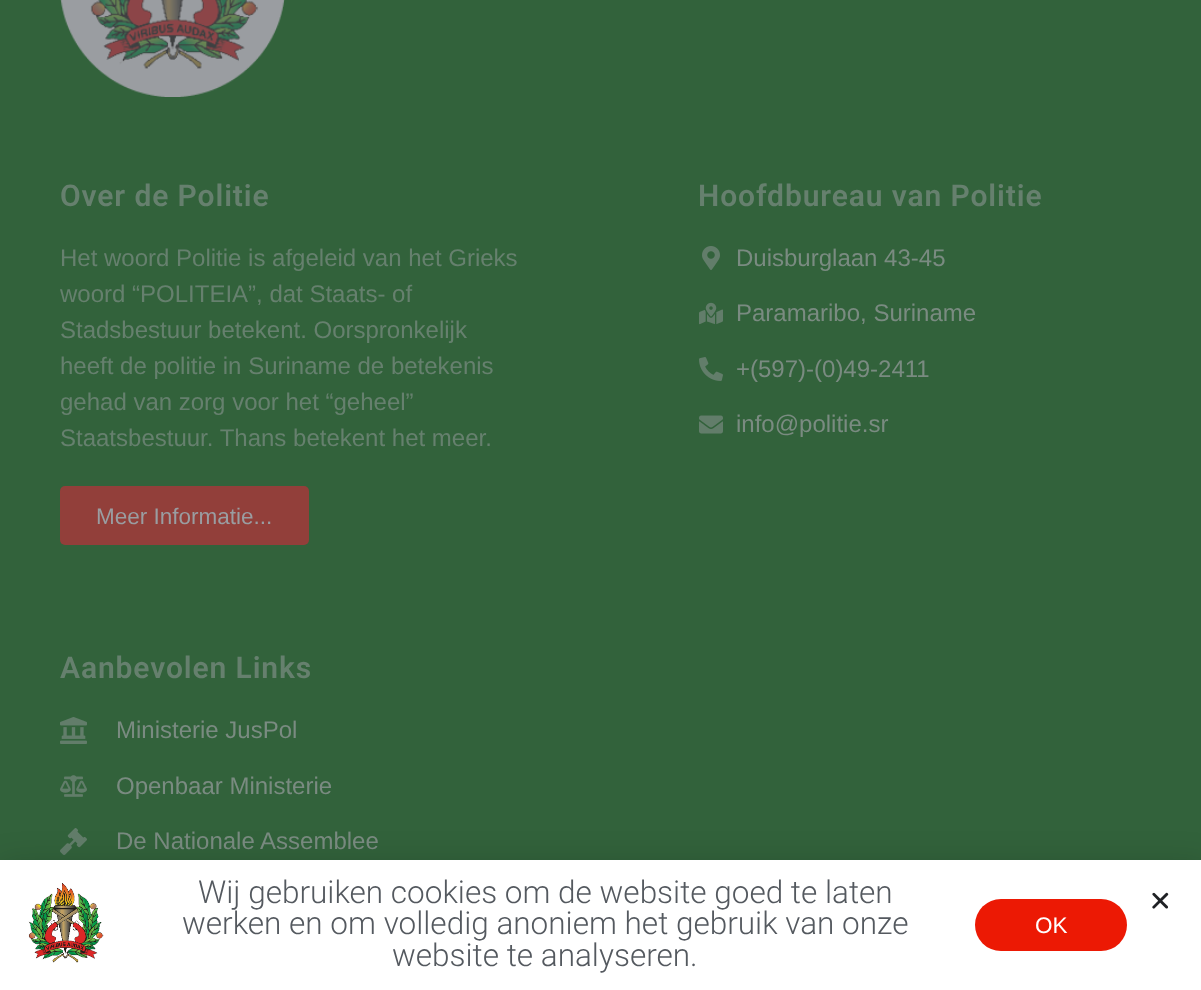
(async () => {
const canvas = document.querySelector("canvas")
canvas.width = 1201
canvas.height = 990
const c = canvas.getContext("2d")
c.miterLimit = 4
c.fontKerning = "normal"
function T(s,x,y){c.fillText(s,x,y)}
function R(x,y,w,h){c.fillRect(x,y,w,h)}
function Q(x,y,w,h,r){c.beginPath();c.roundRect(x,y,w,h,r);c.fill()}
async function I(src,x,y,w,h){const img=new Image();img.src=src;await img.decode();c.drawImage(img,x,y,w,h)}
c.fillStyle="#32623b"
R(0,0,1201,990)
await I("1.png",60,0,225,97)
c.letterSpacing="0.9px"
c.font="600 30px Roboto"
c.fillStyle="#66806e"
T("Over de Politie",60,206)
c.letterSpacing="0px"
c.font="24px Liberation Sans"
T("Het woord Politie is afgeleid van het Grieks",60,266)
T("woord “POLITEIA”, dat Staats- of",60,302)
T("Stadsbestuur betekent. Oorspronkelijk",60,338)
T("heeft de politie in Suriname de betekenis",60,374)
T("gehad van zorg voor het “geheel”",60,410)
T("Staatsbestuur. Thans betekent het meer.",60,446)
c.fillStyle="#923f3a"
Q(60,486,249,59,5)
c.font="22.5px Liberation Sans"
c.fillStyle="#9a9da1"
T("Meer Informatie...",96,524)
c.letterSpacing="0.9px"
c.font="600 30px Roboto"
c.fillStyle="#66806e"
T("Hoofdbureau van Politie",698,206)
await I("2.png",702,246,18,24)
c.letterSpacing="0px"
c.font="24px Liberation Sans"
c.fillStyle="#7a8b81"
T("Duisburglaan 43-45",736,266)
await I("3.png",699,302,24,23)
T("Paramaribo, Suriname",736,321)
await I("4.png",699,357,24,24)
T("+(597)-(0)49-2411",736,377)
await I("5.png",699,415,24,19)
T("info@politie.sr",736,432)
c.letterSpacing="0.9px"
c.font="600 30px Roboto"
c.fillStyle="#66806e"
T("Aanbevolen Links",60,678)
await I("6.png",60,717,27,27)
c.letterSpacing="0px"
c.font="24px Liberation Sans"
c.fillStyle="#7a8b81"
T("Ministerie JusPol",116,738)
await I("7.png",60,775,27,22)
T("Openbaar Ministerie",116,794)
await I("8.png",60,828,27,27)
T("De Nationale Assemblee",116,849)
c.fillStyle="#00000033"
c.filter="blur(17px)"
c.beginPath()
c.rect(-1,867,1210,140)
c.fill()
c.filter="none"
c.fillStyle="#fff"
R(0,860,1201,130)
await I("9.png",28,883,76,80)
c.font="300 31.5px Roboto"
c.fillStyle="#54595f"
T("Wij gebruiken cookies om de website goed te laten",198,903)
T("werken en om volledig anoniem het gebruik van onze",182,934)
T("website te analyseren.",392,966)
c.fillStyle="#ec1904"
Q(975,899,152,52,26)
c.font="22.5px Liberation Sans"
c.fillStyle="#fff"
T("OK",1035,933)
await I("10.png",1152,892,17,17)
})()
